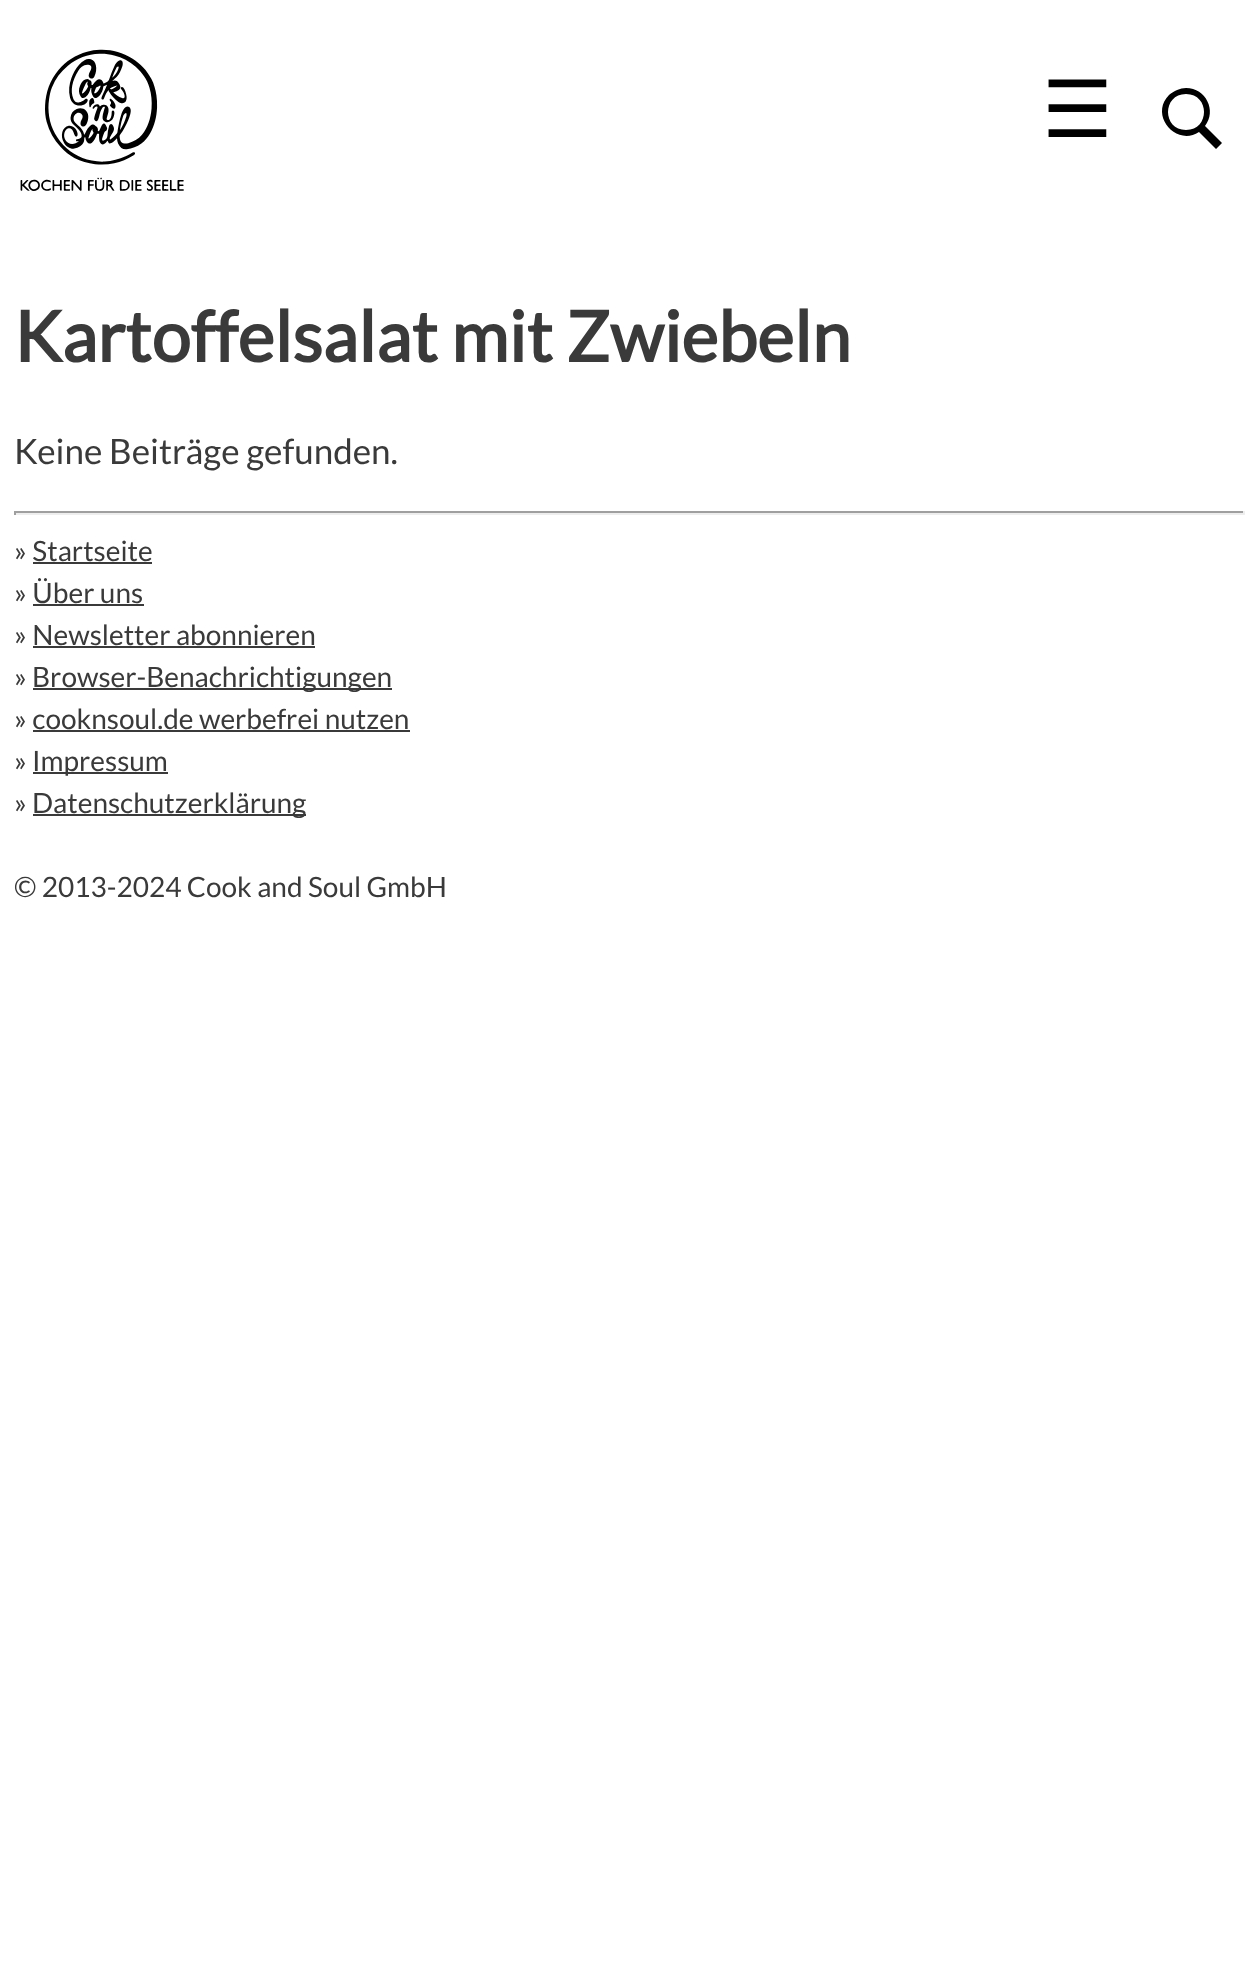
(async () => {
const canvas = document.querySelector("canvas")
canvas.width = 1258
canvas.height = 1982
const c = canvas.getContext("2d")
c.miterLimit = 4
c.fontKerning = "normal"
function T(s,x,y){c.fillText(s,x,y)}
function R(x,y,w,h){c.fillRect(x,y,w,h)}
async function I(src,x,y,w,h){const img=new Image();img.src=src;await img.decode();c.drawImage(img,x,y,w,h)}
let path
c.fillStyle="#fff"
R(0,0,1258,1982)
await I("1.png",20,49,164,142)
c.font="79px DejaVu Sans"
c.fillStyle="#000"
T("☰",1042,137)
path = new Path2D("M1186 88c-6 0-12 3-17 7c-20 20 7 52 30 37l17 17l6-6l-17-17c12-15 1-38-19-38zm0 6c24 0 24 36 0 36c-24 0-24-36 0-36z")
c.fill(path)
c.font="bold 70px Lato"
c.fillStyle="#3a3a3a"
T("Kartoffelsalat mit Zwiebeln",14,362)
c.font="35px Lato"
T("Keine Beiträge gefunden.",14,464)
c.fillStyle="#9f9f9f"
R(14,511,1230,2)
c.fillStyle="#eee"
R(1243,511,2,4)
R(14,513,1230,2)
c.fillStyle="#9f9f9f"
R(14,511,2,4)
c.font="28px Lato"
c.fillStyle="#3a3a3a"
T("» Startseite",14,561)
R(33,562,119,2)
T("» Über uns",14,603)
R(33,604,111,2)
T("» Newsletter abonnieren",14,645)
R(33,646,282,2)
T("»",14,687)
R(33,688,359,2)
T("Browser-Benachrichtigungen",32,687)
T("» cooknsoul.de werbefrei nutzen",14,729)
R(33,730,377,2)
T("»",14,771)
R(33,772,135,2)
T("Impressum",32,771)
T("»",14,813)
R(33,814,273,2)
T("Datenschutzerklärung",32,813)
T("© 2013-2024 Cook and Soul GmbH",14,897)
})()
